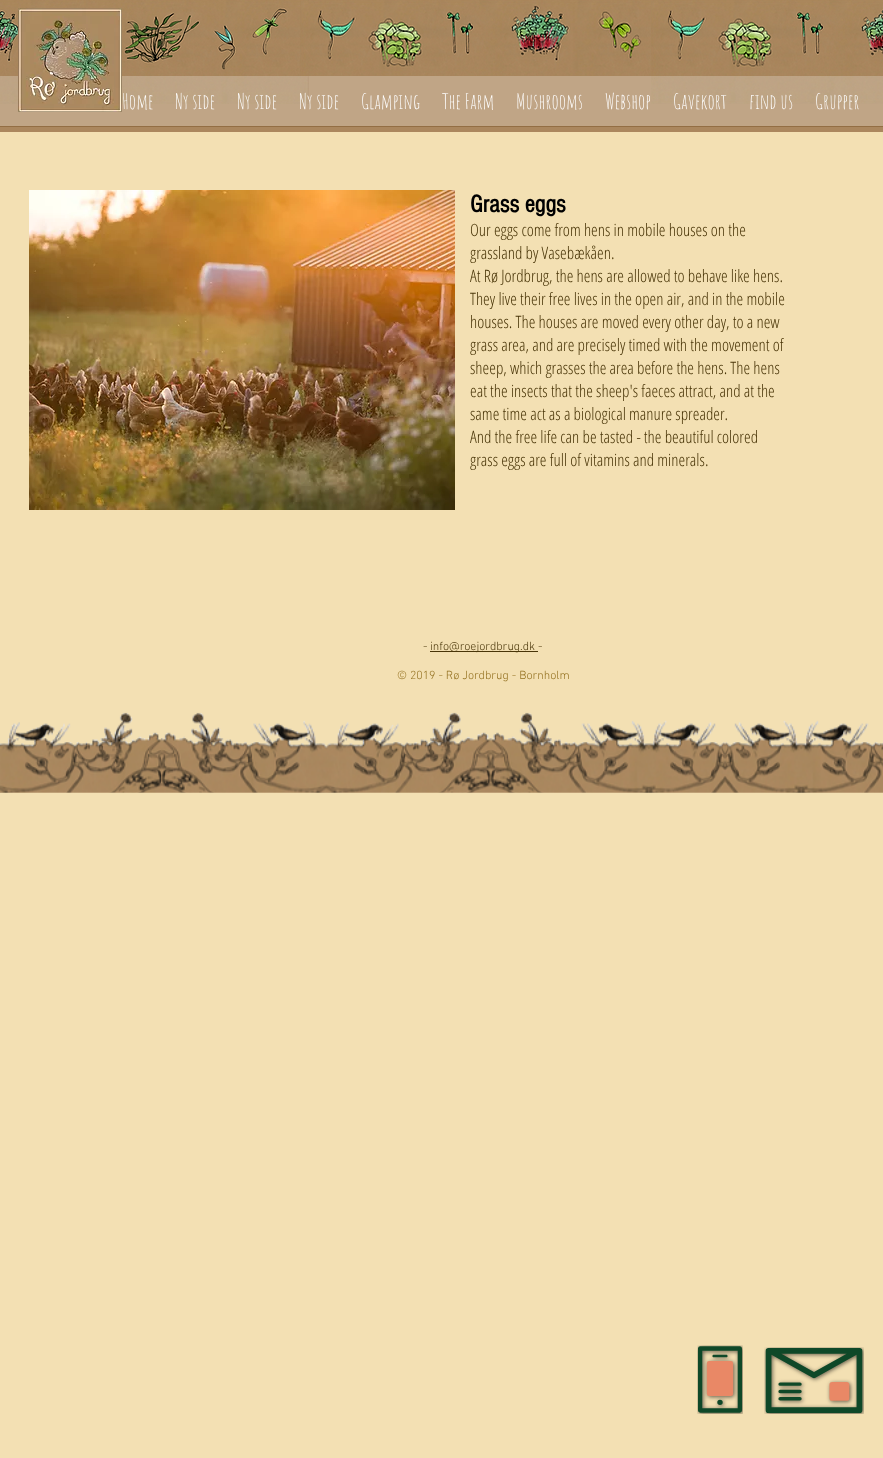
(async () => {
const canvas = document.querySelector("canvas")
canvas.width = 883
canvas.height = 1458
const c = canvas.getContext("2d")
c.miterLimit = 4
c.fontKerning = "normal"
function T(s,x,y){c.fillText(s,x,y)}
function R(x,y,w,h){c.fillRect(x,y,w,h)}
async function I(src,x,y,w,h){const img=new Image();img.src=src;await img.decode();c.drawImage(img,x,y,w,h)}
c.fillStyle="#f3e0b3"
R(0,0,883,1458)
c.fillStyle="#ab875e"
R(0,0,883,132)
await I("1.png",0,0,309,104)
await I("2.png",300,0,554,76)
await I("4.png",651,0,232,104)
c.fillStyle="#ffffff40"
R(0,76,883,50)
await I("3.png",18,8,104,104)
c.fillStyle="#936e44"
R(0,126,883,1)
c.font="21px Amatic SC"
c.fillStyle="#fff"
T("Home",122,109)
T("Ny side",175,109)
T("Ny side",237,109)
T("Ny side",299,109)
T("Glamping",361,109)
T("The Farm",442,109)
T("Mushrooms",516,109)
T("Webshop",605,109)
T("Gavekort",673,109)
T("find us",749,109)
T("Grupper",815,109)
await I("5.png",29,190,426,320)
c.font="bold 25px 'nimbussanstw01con'"
c.fillStyle="#000"
T("Grass eggs",470,212)
c.font="300 17px Open Sans Condensed"
c.fillStyle="#493508"
T("Our eggs come from hens in mobile houses on the",470,236)
T("grassland by Vasebækåen.",470,259)
T("At Rø Jordbrug, the hens are allowed to behave like hens.",470,282)
T("They live their free lives in the open air, and in the mobile",470,305)
T("houses. The houses are moved every other day, to a new",470,328)
T("grass area, and are precisely timed with the movement of",470,351)
T("sheep, which grasses the area before the hens. The hens",470,374)
T("eat the insects that the sheep's faeces attract, and at the",470,397)
T("same time act as a biological manure spreader.",470,420)
T("And the free life can be tasted - the beautiful colored",470,443)
T("grass eggs are full of vitamins and minerals.",470,466)
c.font="300 12px 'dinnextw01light'"
T("-",423,650)
R(430,651,108,1)
T("info@roejordbrug.dk -",430,650)
c.fillStyle="#93701f"
T("© 2019 - Rø Jordbrug - Bornholm",397,679)
await I("6.png",0,712,883,81)
await I("7.png",697,1345,46,69)
await I("8.png",764,1347,100,67)
})()
